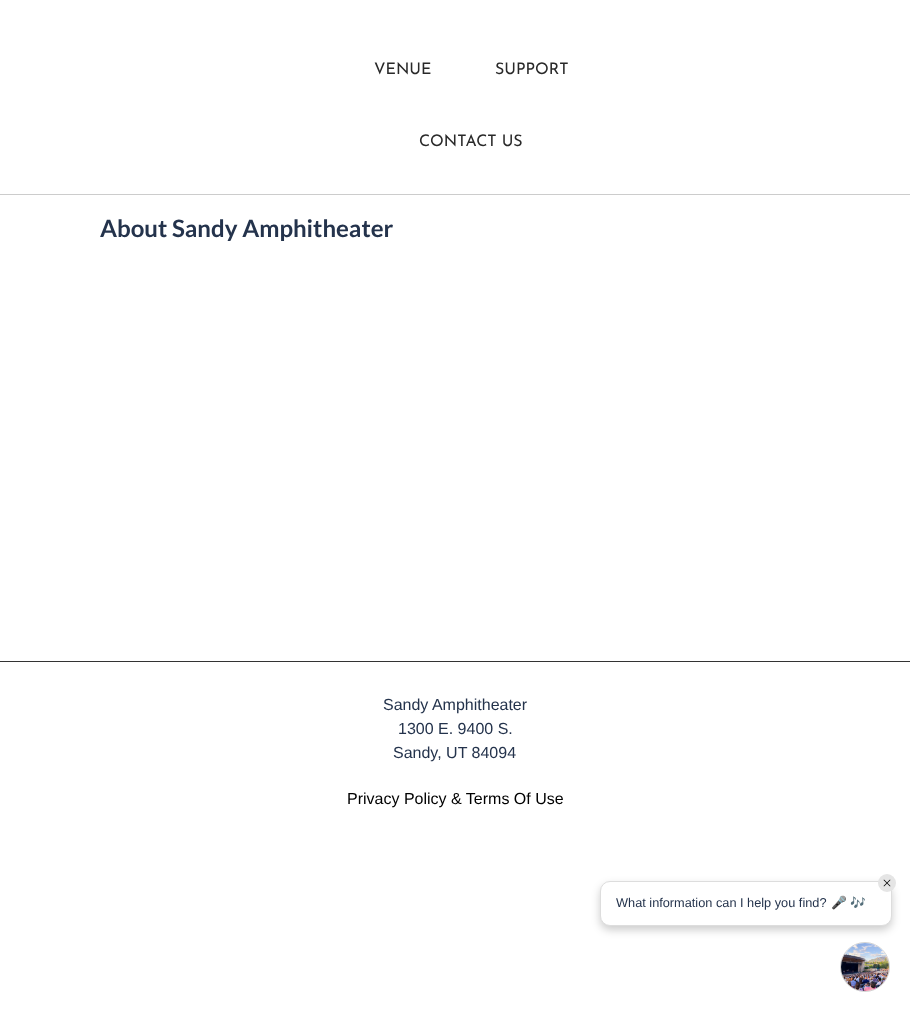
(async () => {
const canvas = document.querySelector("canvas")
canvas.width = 910
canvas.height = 1012
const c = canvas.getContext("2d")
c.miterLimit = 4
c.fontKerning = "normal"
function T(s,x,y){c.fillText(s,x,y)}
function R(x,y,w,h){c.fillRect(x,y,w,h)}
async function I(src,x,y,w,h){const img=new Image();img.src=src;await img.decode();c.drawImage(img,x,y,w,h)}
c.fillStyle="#fff"
R(0,0,910,1012)
c.fillStyle="#ccc"
R(0,194,910,1)
c.font="16px Josefin Sans"
c.fillStyle="#292929"
T("VENUE",374,74)
T("SUPPORT",495,74)
T("CONTACT US",419,146)
c.font="bold 24px Lato"
c.fillStyle="#24334c"
T("About Sandy Amphitheater",100,237)
c.fillStyle="#333"
R(0,661,910,1)
c.font="16px Liberation Sans"
c.fillStyle="#24334c"
T("Sandy Amphitheater",383,710)
T("1300 E. 9400 S.",398,734)
T("Sandy, UT 84094",393,758)
c.fillStyle="#000"
T("Privacy Policy & Terms Of Use",347,804)
c.fillStyle="#00000033"
c.filter="blur(4px)"
c.beginPath()
c.roundRect(600,885,292,45,10)
c.fill()
c.filter="none"
c.fillStyle="#fff"
c.beginPath()
c.roundRect(600.5,881.5,291,44,9.5)
c.fill()
c.strokeStyle="#ddd"
c.stroke()
c.fillStyle="#e5e5e5"
c.beginPath()
c.arc(887,883,9,0,7)
c.fill()
await I("1.png",883,879,8,8)
c.font="12.75px Liberation Sans"
c.fillStyle="#24334c"
T("What information can I help you find?",616,907)
c.font="12.75px Noto Color Emoji"
T("🎤",831,907)
T("🎶",850,907)
await I("2.png",840,942,50,50)
})()
